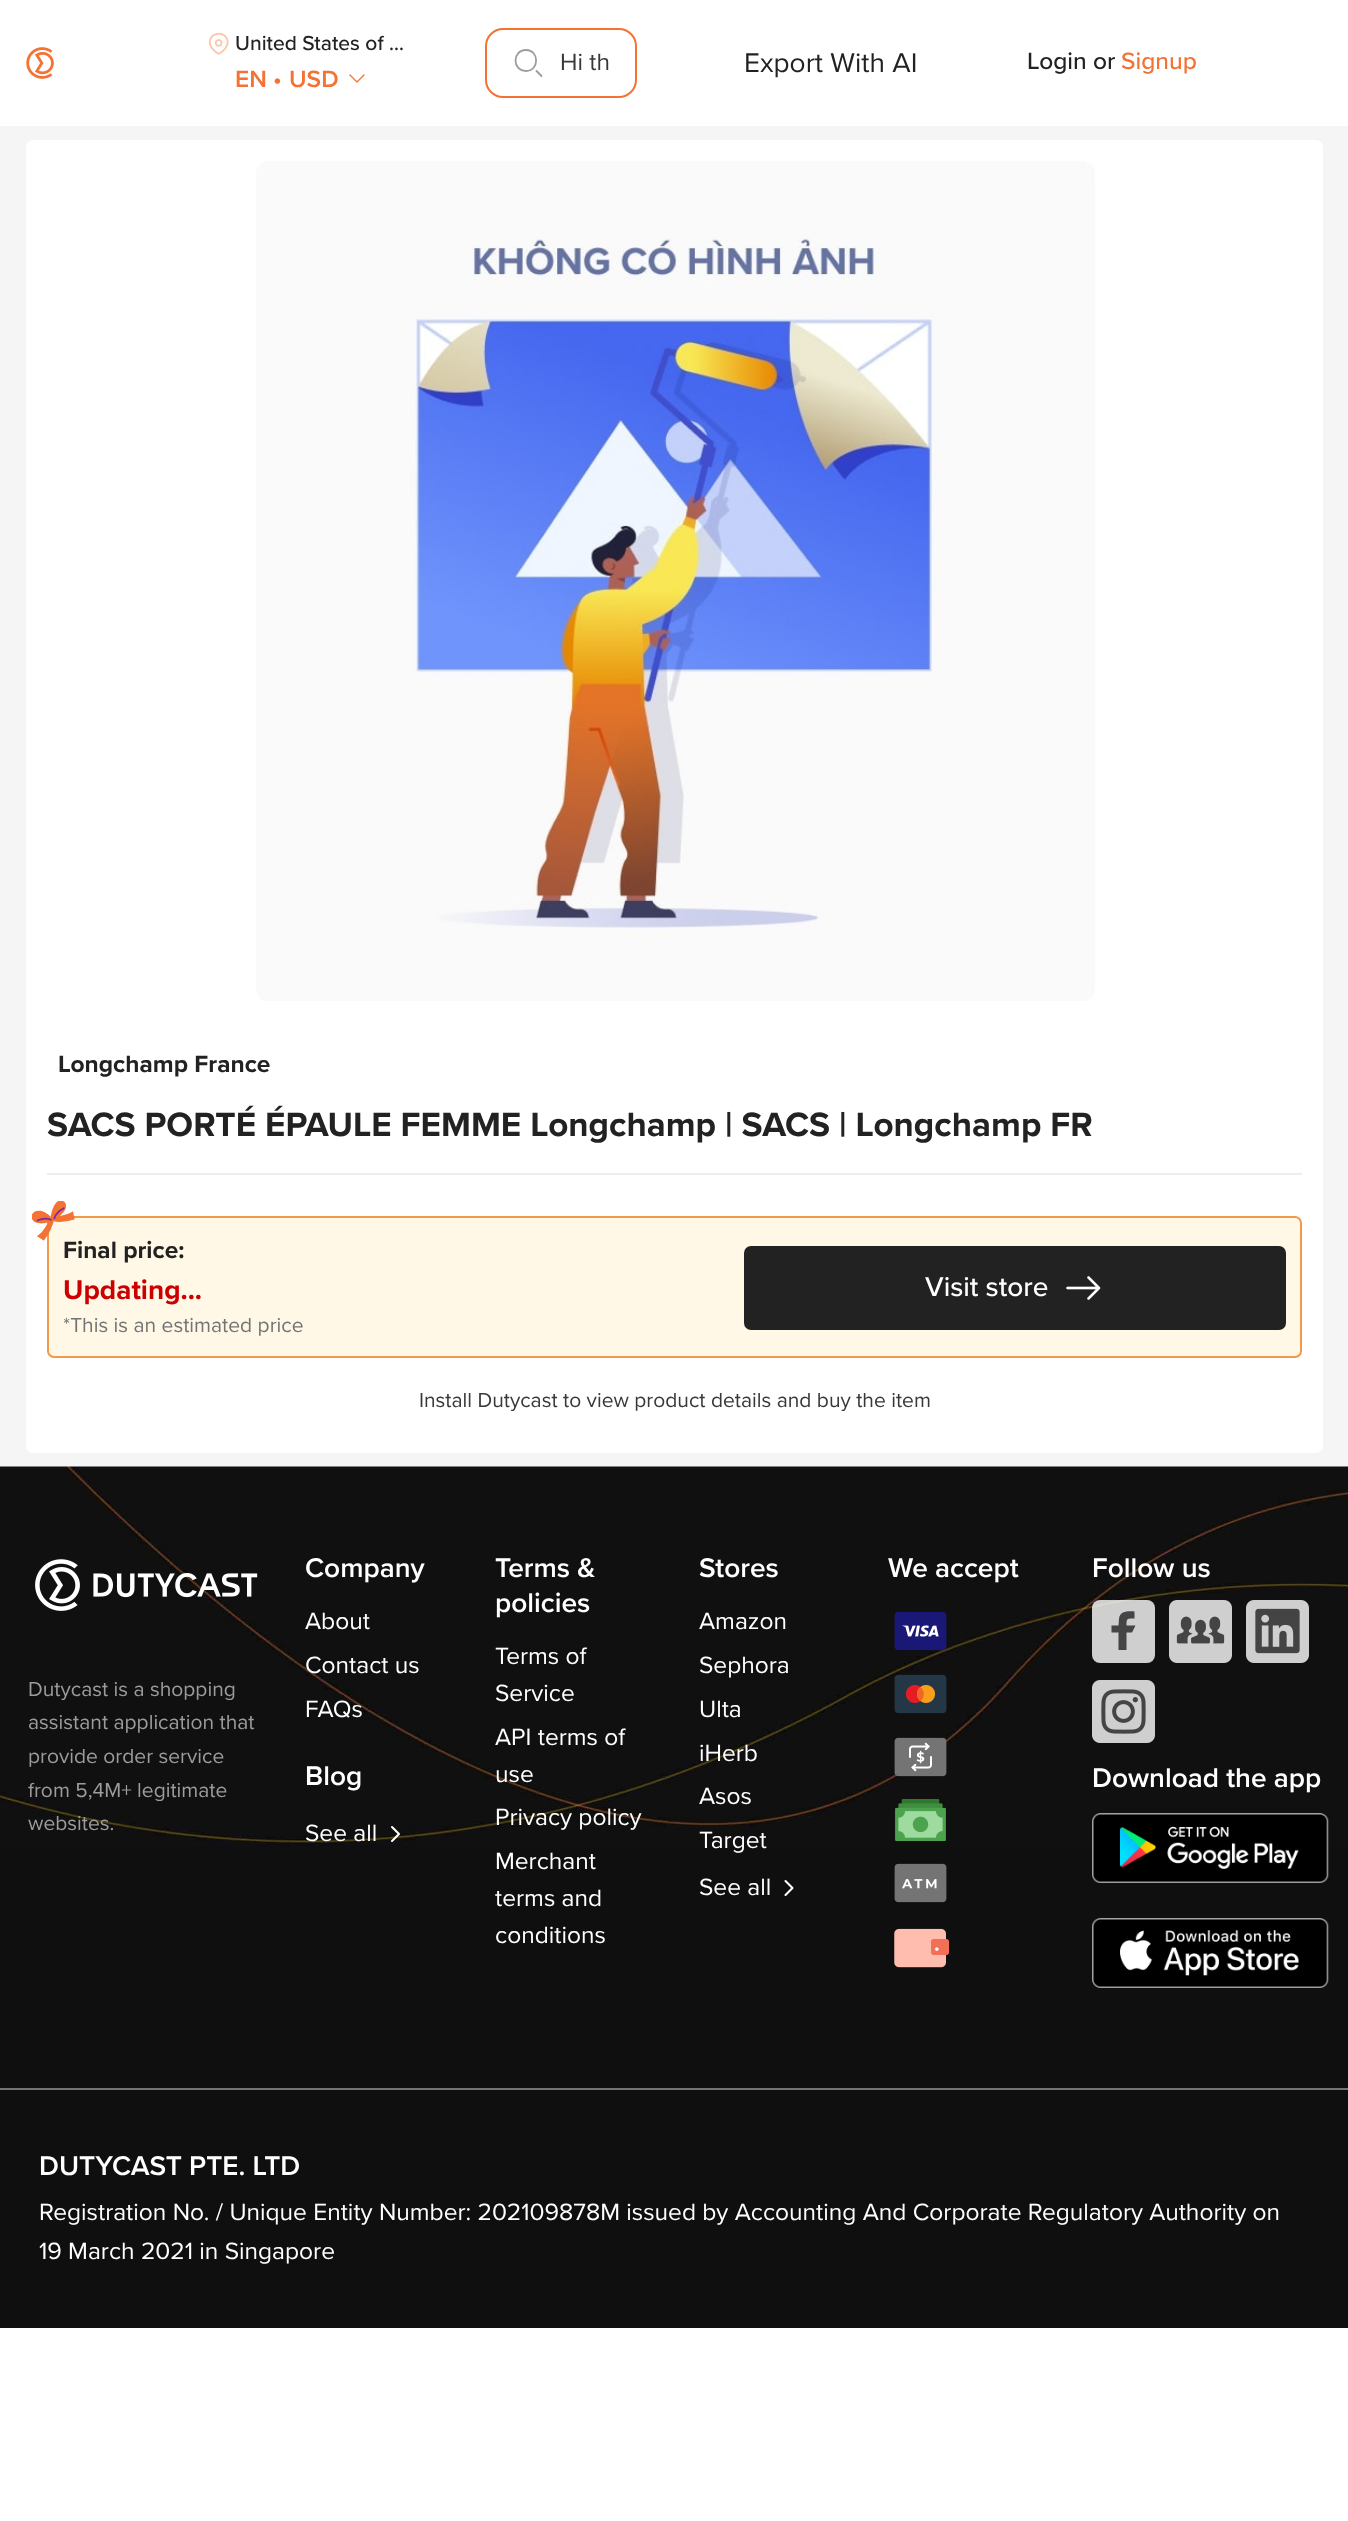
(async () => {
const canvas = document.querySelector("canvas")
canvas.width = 1348
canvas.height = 2521
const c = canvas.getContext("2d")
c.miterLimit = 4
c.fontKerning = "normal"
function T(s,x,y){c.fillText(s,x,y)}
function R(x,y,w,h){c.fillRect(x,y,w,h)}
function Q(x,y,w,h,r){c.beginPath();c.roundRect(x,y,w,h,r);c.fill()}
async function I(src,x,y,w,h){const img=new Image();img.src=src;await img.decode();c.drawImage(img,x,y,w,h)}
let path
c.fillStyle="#fff"
R(0,0,1348,2521)
await I("1.png",26,47,28,32)
await I("2.png",208,32,21,23)
c.font="500 21px Proxima Nova"
c.fillStyle="#222"
T("United States of …",235,50)
c.font="600 24.5px Proxima Nova"
c.fillStyle="#f37234"
T("EN",235,87)
T("•",273,87)
T("USD",289,87)
path = new Path2D("M350 75l7 7l7-7")
c.strokeStyle="#f37234"
c.lineWidth=1.3
c.lineCap="round"
c.lineJoin="round"
c.stroke(path)
c.beginPath()
c.roundRect(486,29,150,68,17)
c.lineWidth=2
c.lineJoin="miter"
c.stroke()
path = new Path2D("M541.5 76l-5-5m-10.5 0c13.5 0 13.5-21 0-21c-14 0-14 21 0 21z")
c.strokeStyle="#9c9c9c"
c.lineWidth=1.8
c.lineJoin="round"
c.stroke(path)
c.font="24.5px Proxima Nova"
c.fillStyle="#383838"
T("Hi th",560,70)
c.font="28px Proxima Nova"
c.fillStyle="#222"
T("Export With AI",744,72)
c.font="500 24.5px Proxima Nova"
T("Login or",1027,69)
c.fillStyle="#f37234"
T("Signup",1121,69)
c.fillStyle="#f5f5f5"
R(0,126,1348,1341)
c.fillStyle="#fff"
Q(26,140,1297,1313,7)
await I("3.png",256,161,839,840)
c.font="bold 24.5px Proxima Nova"
c.fillStyle="#222"
T("Longchamp France",58,1072)
c.font="bold 35px Proxima Nova"
T("SACS PORTÉ ÉPAULE FEMME Longchamp | SACS | Longchamp FR",47,1136)
c.fillStyle="#eee"
R(47,1173,1255,2)
c.fillStyle="#fff8e6"
c.beginPath()
c.roundRect(48,1217,1253,140,6)
c.fill()
c.strokeStyle="#f2994a"
c.lineWidth=2
c.lineJoin="miter"
c.stroke()
c.font="bold 24.5px Proxima Nova"
c.fillStyle="#222"
T("Final price:",63,1258)
await I("4.png",32,1201,43,40)
c.font="bold 28px Proxima Nova"
c.fillStyle="#c00"
T("Updating...",63,1299)
c.font="21px Proxima Nova"
c.fillStyle="#747474"
T("*This is an estimated price",63,1332)
c.fillStyle="#222"
Q(744,1246,542,84,7)
c.font="500 28px Proxima Nova"
c.fillStyle="#fff"
T("Visit store",925,1296)
await I("5.png",1066,1276,35,24)
c.font="21px Proxima Nova"
c.fillStyle="#383838"
T("Install Dutycast to view product details and buy the item",419,1407)
c.fillStyle="#0f0f0f"
R(0,1846,1348,482)
await I("6.png",0,1466,1348,380)
await I("7.png",35,1559,223,52)
c.fillStyle="#9c9c9c"
T("Dutycast is a shopping",28,1696)
T("assistant application that",28,1729)
T("provide order service",28,1763)
T("from 5,4M+ legitimate",28,1797)
T("websites.",28,1830)
c.font="600 28px Proxima Nova"
c.fillStyle="#fff"
T("Company",305,1577)
c.font="24.5px Proxima Nova"
T("About",305,1629)
T("Contact us",305,1673)
T("FAQs",305,1717)
c.font="600 28px Proxima Nova"
T("Blog",305,1785)
c.font="24.5px Proxima Nova"
T("See all",305,1841)
path = new Path2D("M392 1827l7 7l-7 7")
c.strokeStyle="#fff"
c.lineWidth=2.1
c.lineJoin="round"
c.stroke(path)
c.font="600 28px Proxima Nova"
T("Terms &",495,1577)
T("policies",495,1612)
c.font="24.5px Proxima Nova"
T("Terms of",495,1664)
T("Service",495,1701)
T("API terms of",495,1745)
T("use",495,1782)
T("Privacy policy",495,1825)
T("Merchant",495,1869)
T("terms and",495,1906)
T("conditions",495,1943)
c.font="600 28px Proxima Nova"
T("Stores",699,1577)
c.font="24.5px Proxima Nova"
T("Amazon",699,1629)
T("Sephora",699,1673)
T("Ulta",699,1717)
T("iHerb",699,1761)
T("Asos",699,1804)
T("Target",699,1848)
T("See all",699,1895)
path = new Path2D("M785.5 1881l7 7l-7 7")
c.stroke(path)
c.font="600 28px Proxima Nova"
T("We accept",888,1577)
await I("8.png",894,1611,53,40)
await I("9.png",894,1674,53,40)
await I("10.png",894,1737,53,40)
await I("11.png",895,1799,51,42)
await I("12.png",894,1863,53,40)
await I("13.png",894,1928,55,40)
T("Follow us",1092,1577)
c.fillStyle="#ffffffcc"
Q(1092,1600,63,63,8)
c.fillStyle="#454545"
path = new Path2D("M1118.5 1650v-17.5h-7v-7h7l.5-7c1-7.5 9-7.5 15.5-7v7c-7.5 0-8-.5-8 7h9l-3.5 7h-5.5v17.5z")
c.fill(path)
await I("14.png",1169,1600,63,63)
await I("15.png",1246,1600,63,63)
await I("16.png",1092,1680,63,63)
c.fillStyle="#fff"
T("Download the app",1092,1787)
await I("17.png",1092,1813,237,70)
await I("18.png",1092,1918,237,70)
c.fillStyle="#747474"
R(0,2088,1348,2)
c.fillStyle="#fff"
T("DUTYCAST PTE. LTD",39,2175)
c.font="24.5px Proxima Nova"
T("Registration No. / Unique Entity Number: 202109878M issued by Accounting And Corporate Regulatory Authority on",39,2220)
T("19 March 2021 in Singapore",39,2259)
})()
